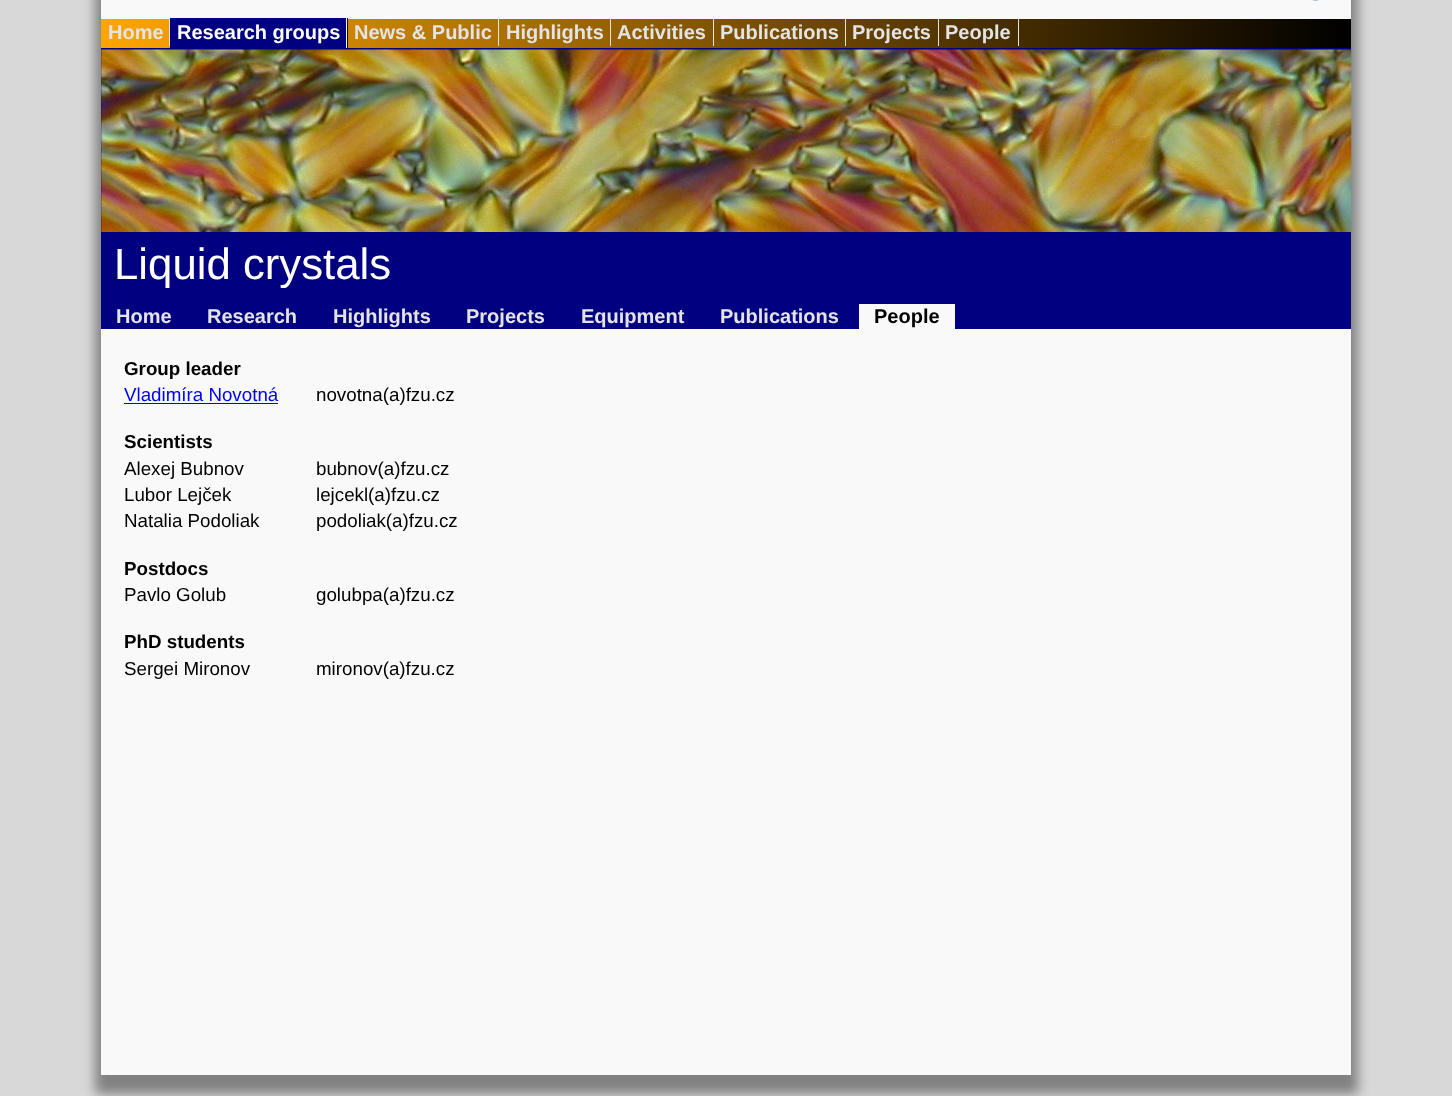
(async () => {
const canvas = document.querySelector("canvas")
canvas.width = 1452
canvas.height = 1096
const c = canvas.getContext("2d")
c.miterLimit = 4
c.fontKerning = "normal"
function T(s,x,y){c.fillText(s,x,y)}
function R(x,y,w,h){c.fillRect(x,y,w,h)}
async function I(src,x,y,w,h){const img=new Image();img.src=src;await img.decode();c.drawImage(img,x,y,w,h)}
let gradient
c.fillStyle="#d8d8d8"
R(0,0,1452,1096)
c.fillStyle="#00000066"
c.filter="blur(6px)"
c.beginPath()
c.rect(95,-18,1263,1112)
c.fill()
c.filter="none"
c.fillStyle="#f9f9f9"
R(101,0,1250,1075)
await I("1.png",1312,0,7,1)
gradient = c.createLinearGradient(101,33,1351,33)
gradient.addColorStop(0,"#ffa500")
gradient.addColorStop(1,"#000")
c.fillStyle = gradient
R(101,19,1250,29)
c.font="bold 20px Liberation Sans"
c.fillStyle="#e4e4e6"
T("Home",108,39)
R(169,19,1,27)
c.fillStyle="#000080"
R(170,18,178,30)
c.fillStyle="#fff"
T("Research groups",177,39)
R(346,18,1,30)
c.fillStyle="#e4e4e6"
T("News & Public",354,39)
R(498,19,1,27)
T("Highlights",506,39)
R(610,19,1,27)
T("Activities",617,39)
R(713,19,1,27)
T("Publications",720,39)
R(845,19,1,27)
T("Projects",852,39)
R(938,19,1,27)
T("People",945,39)
R(1018,19,1,27)
c.fillStyle="#000080"
R(101,48,1250,281)
await I("2.png",101,49,1251,183)
c.font="43.75px Liberation Sans"
c.fillStyle="#fff"
T("Liquid crystals",114,279)
c.font="bold 20px Liberation Sans"
c.fillStyle="#e4e4e6"
T("Home",116,323)
T("Research",207,323)
T("Highlights",333,323)
T("Projects",466,323)
T("Equipment",581,323)
T("Publications",720,323)
c.fillStyle="#f9f9f9"
R(859,304,96,25)
c.fillStyle="#000"
T("People",874,323)
c.font="bold 18.75px Liberation Sans"
T("Group leader",124,375)
c.font="18.75px Liberation Sans"
c.fillStyle="#00e"
T("Vladimíra Novotná",124,401)
R(124,403,154,1)
c.fillStyle="#000"
T("novotna(a)fzu.cz",316,401)
c.font="bold 18.75px Liberation Sans"
T("Scientists",124,448)
c.font="18.75px Liberation Sans"
T("Alexej Bubnov",124,475)
T("bubnov(a)fzu.cz",316,475)
T("Lubor Lejček",124,501)
T("lejcekl(a)fzu.cz",316,501)
T("Natalia Podoliak",124,527)
T("podoliak(a)fzu.cz",316,527)
c.font="bold 18.75px Liberation Sans"
T("Postdocs",124,575)
c.font="18.75px Liberation Sans"
T("Pavlo Golub",124,601)
T("golubpa(a)fzu.cz",316,601)
c.font="bold 18.75px Liberation Sans"
T("PhD students",124,648)
c.font="18.75px Liberation Sans"
T("Sergei Mironov",124,675)
T("mironov(a)fzu.cz",316,675)
})()
